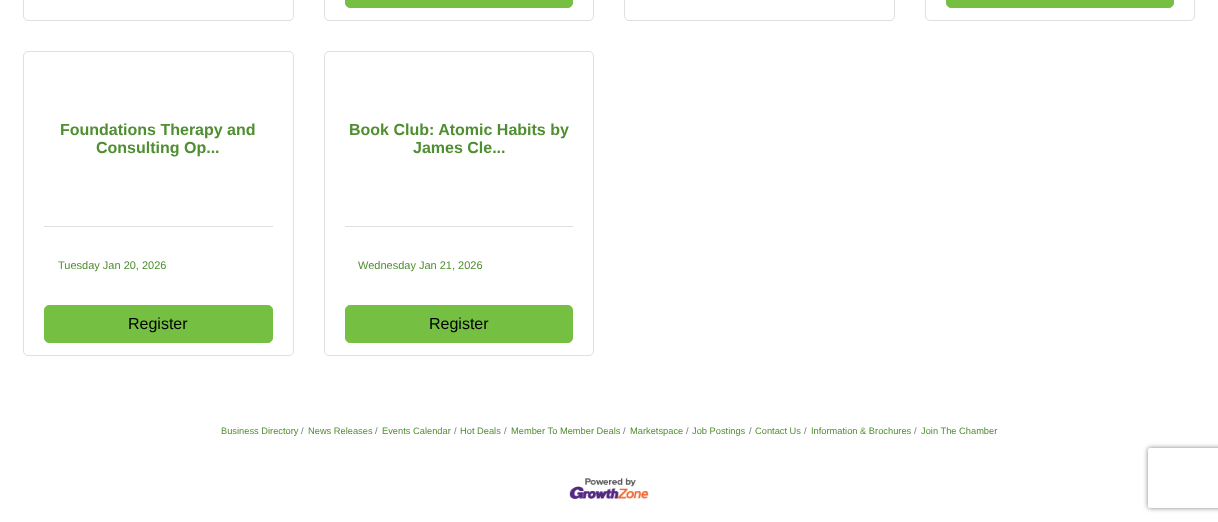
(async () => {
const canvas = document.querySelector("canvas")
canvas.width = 1218
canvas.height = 522
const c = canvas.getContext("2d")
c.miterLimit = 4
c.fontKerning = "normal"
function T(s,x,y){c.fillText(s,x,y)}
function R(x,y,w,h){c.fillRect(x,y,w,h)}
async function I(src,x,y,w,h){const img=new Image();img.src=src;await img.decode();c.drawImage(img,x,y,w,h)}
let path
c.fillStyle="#fff"
R(0,0,1218,522)
c.beginPath()
c.roundRect(23.5,-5.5,270,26,4.5)
c.strokeStyle="#dfdfdf"
c.stroke()
c.beginPath()
c.roundRect(324.5,-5.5,269,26,4.5)
c.stroke()
c.fillStyle="#75bf42"
c.beginPath()
c.roundRect(345.5,-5.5,227,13,4.5)
c.fill()
c.strokeStyle="#75bf42"
c.stroke()
c.beginPath()
c.roundRect(624.5,-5.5,270,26,4.5)
c.strokeStyle="#dfdfdf"
c.stroke()
c.beginPath()
c.roundRect(925.5,-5.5,269,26,4.5)
c.stroke()
c.beginPath()
c.roundRect(946.5,-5.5,227,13,4.5)
c.fill()
c.strokeStyle="#75bf42"
c.stroke()
c.beginPath()
c.roundRect(23.5,51.5,270,304,4.5)
c.strokeStyle="#dfdfdf"
c.stroke()
c.fillStyle="#dfdfdf"
R(44,226,229,1)
c.font="bold 16px Liberation Sans"
c.fillStyle="#4f8e31"
T("Foundations Therapy and",60,135)
T("Consulting Op...",96,153)
c.font="11px Liberation Sans"
T("Tuesday Jan 20, 2026",58,269)
c.fillStyle="#75bf42"
c.beginPath()
c.roundRect(44.5,305.5,228,37,4.5)
c.fill()
c.strokeStyle="#75bf42"
c.stroke()
c.font="16px Liberation Sans"
c.fillStyle="#000"
T("Register",128,329)
c.beginPath()
c.roundRect(324.5,51.5,269,304,4.5)
c.strokeStyle="#dfdfdf"
c.stroke()
c.fillStyle="#dfdfdf"
R(345,226,228,1)
c.font="bold 16px Liberation Sans"
c.fillStyle="#4f8e31"
T("Book Club: Atomic Habits by",349,135)
T("James Cle...",413,153)
c.font="11px Liberation Sans"
T("Wednesday Jan 21, 2026",358,269)
c.fillStyle="#75bf42"
c.beginPath()
c.roundRect(345.5,305.5,227,37,4.5)
c.fill()
c.strokeStyle="#75bf42"
c.stroke()
c.font="16px Liberation Sans"
c.fillStyle="#000"
T("Register",429,329)
c.font="9.3px Liberation Sans"
c.fillStyle="#4f8e31"
T("Business Directory",221,434)
c.fillStyle="#6c757d"
T("/",301,434)
c.fillStyle="#4f8e31"
T("News Releases",308,434)
c.fillStyle="#6c757d"
T("/",375,434)
c.fillStyle="#4f8e31"
T("Events Calendar",382,434)
c.fillStyle="#6c757d"
T("/",454,434)
c.fillStyle="#4f8e31"
T("Hot Deals",460,434)
c.fillStyle="#6c757d"
T("/",504,434)
c.fillStyle="#4f8e31"
T("Member To Member Deals",511,434)
c.fillStyle="#6c757d"
T("/",623,434)
c.fillStyle="#4f8e31"
T("Marketspace",630,434)
c.fillStyle="#6c757d"
T("/",686,434)
c.fillStyle="#4f8e31"
T("Job Postings",692,434)
c.fillStyle="#6c757d"
T("/",749,434)
c.fillStyle="#4f8e31"
T("Contact Us",755,434)
c.fillStyle="#6c757d"
T("/",804,434)
c.fillStyle="#4f8e31"
T("Information & Brochures",811,434)
c.fillStyle="#6c757d"
T("/",914,434)
c.fillStyle="#4f8e31"
T("Join The Chamber",921,434)
await I("1.png",569,478,80,21)
c.save()
path = new Path2D("M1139 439h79v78h-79zm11 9h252c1 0 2 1 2 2v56c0 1-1 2-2 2h-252c-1 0-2-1-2-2v-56c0-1 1-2 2-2z")
c.clip(path,"evenodd")
c.fillStyle="#808080"
c.filter="blur(2.5px)"
c.beginPath()
c.roundRect(1148,448,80,60,2)
c.fill()
c.filter="none"
c.restore()
})()
